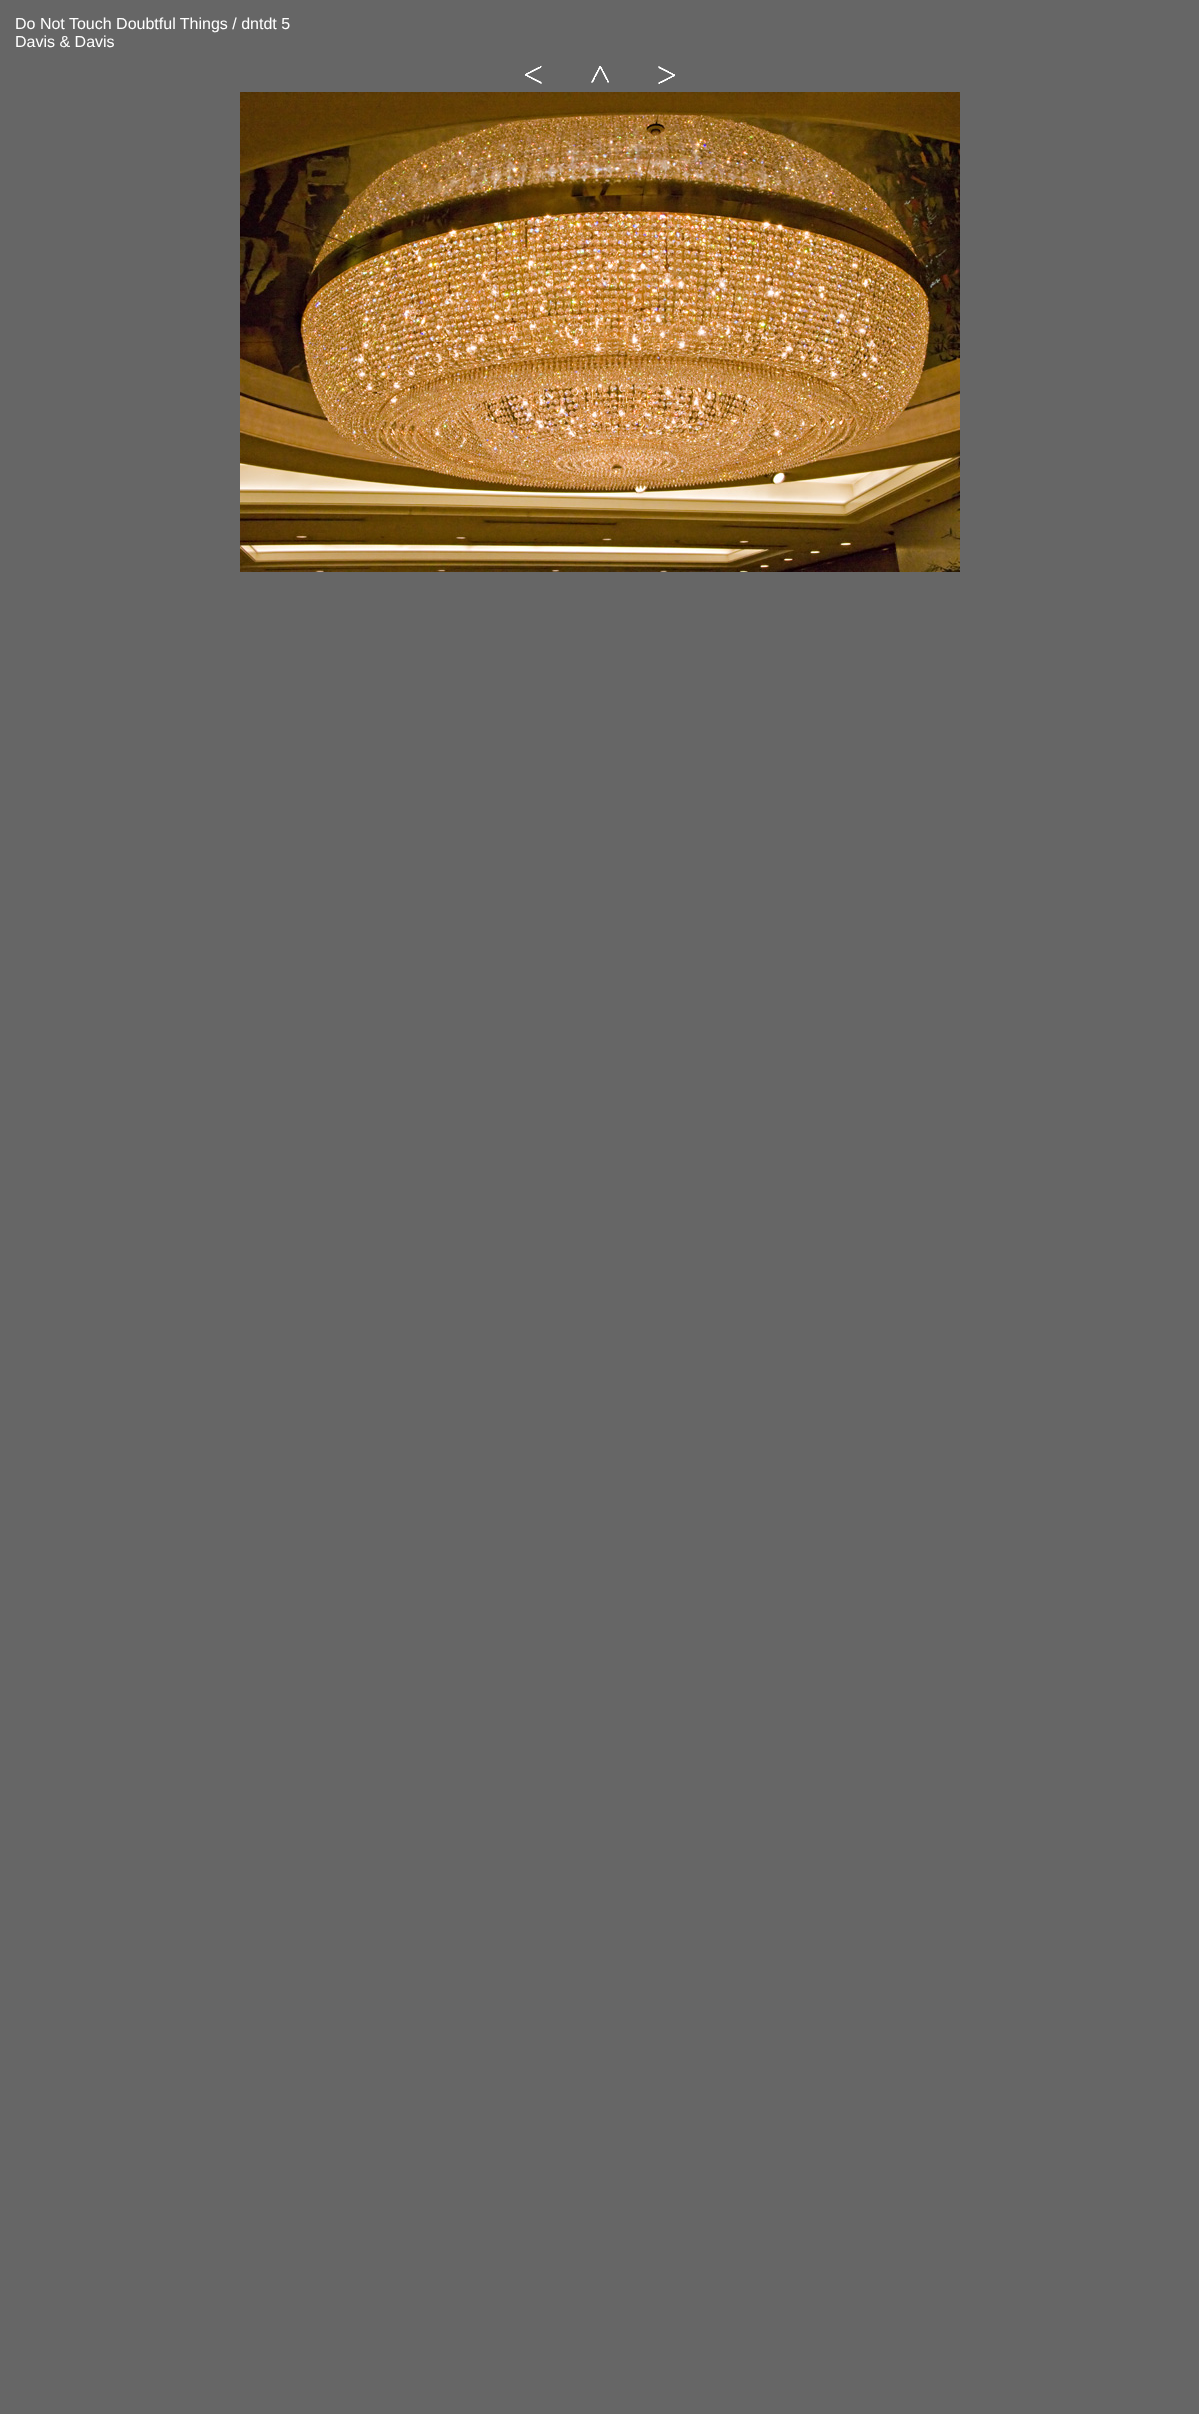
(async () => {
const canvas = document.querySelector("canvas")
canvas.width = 1199
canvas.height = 2414
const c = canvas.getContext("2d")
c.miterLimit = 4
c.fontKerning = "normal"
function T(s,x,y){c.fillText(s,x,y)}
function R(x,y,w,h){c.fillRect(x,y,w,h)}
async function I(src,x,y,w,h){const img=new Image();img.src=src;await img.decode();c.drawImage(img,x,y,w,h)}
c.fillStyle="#666"
R(0,0,1199,2414)
c.font="16px Liberation Sans"
c.fillStyle="#fff"
T("Do Not Touch Doubtful Things / dntdt 5",15,29)
T("Davis & Davis",15,47)
await I("1.png",525,65,17,19)
await I("2.png",591,66,18,17)
await I("3.png",658,66,17,18)
await I("4.png",240,92,720,480)
})()
